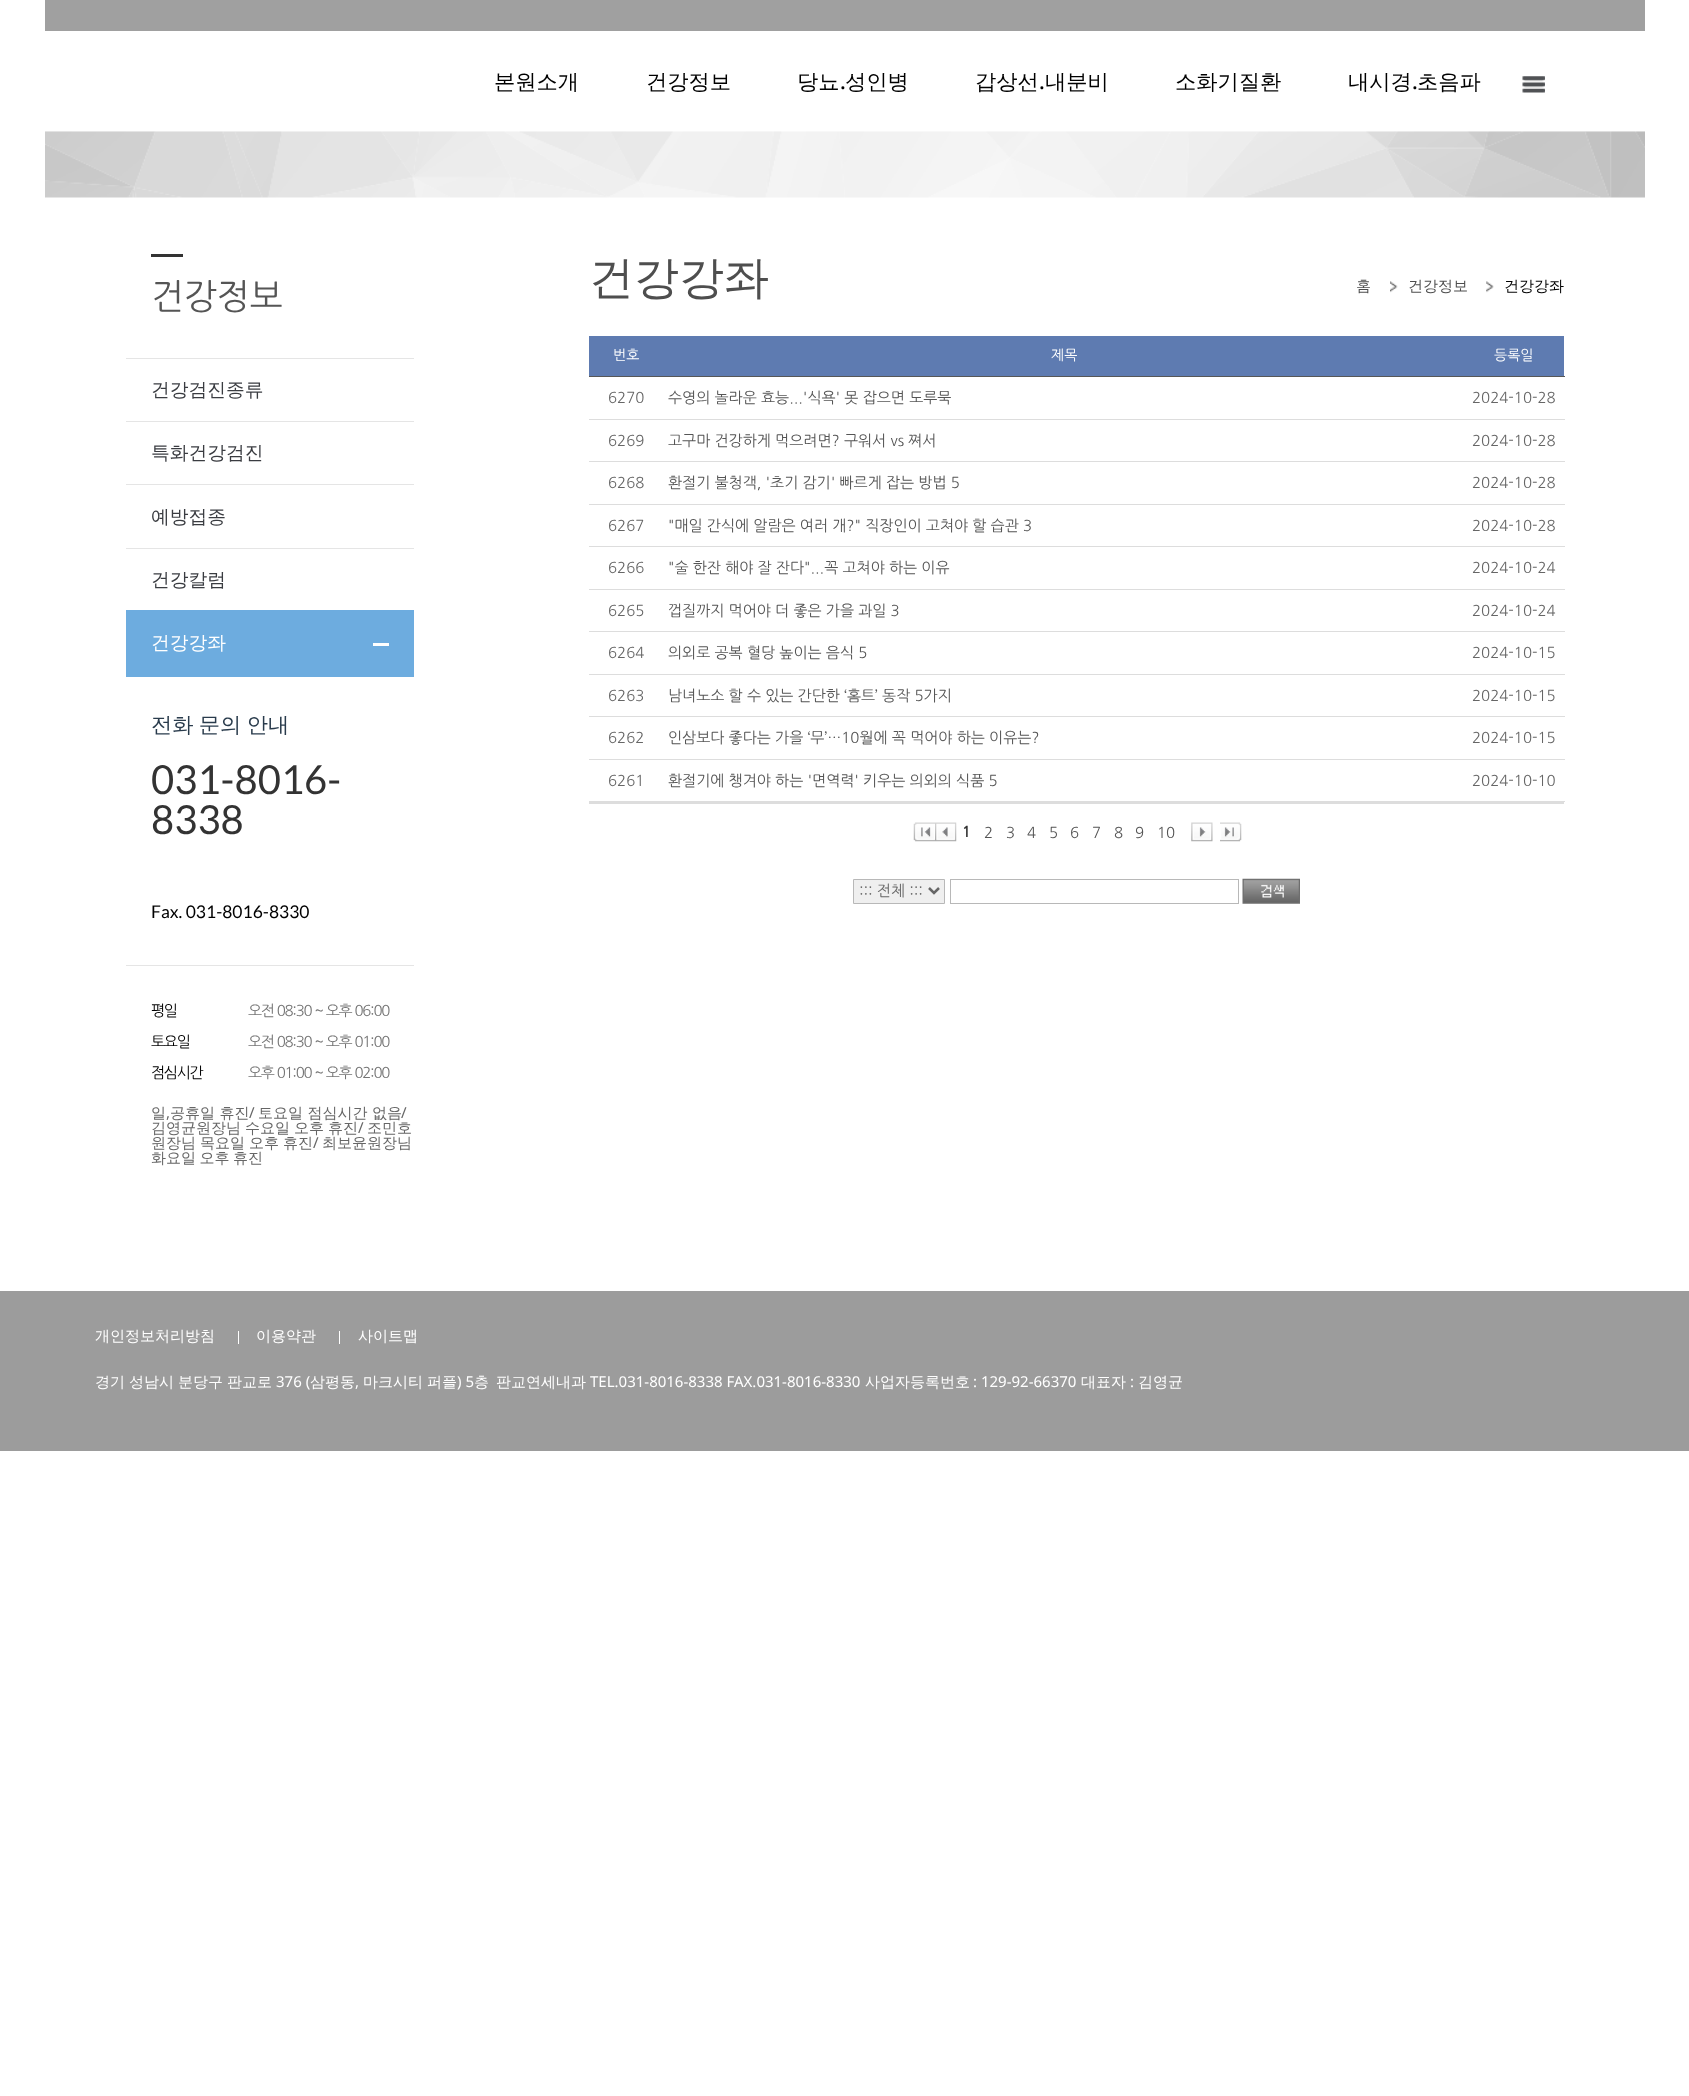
(async () => {
const canvas = document.querySelector("canvas")
canvas.width = 1689
canvas.height = 2096
const c = canvas.getContext("2d")
c.miterLimit = 4
c.fontKerning = "normal"
function T(s,x,y){c.fillText(s,x,y)}
function R(x,y,w,h){c.fillRect(x,y,w,h)}
async function I(src,x,y,w,h){const img=new Image();img.src=src;await img.decode();c.drawImage(img,x,y,w,h)}
let path
c.fillStyle="#fff"
R(0,0,1689,2096)
c.fillStyle="#a0a0a0"
R(45,0,1600,31)
c.font="500 21.25px WenQuanYi Zen Hei"
c.fillStyle="#000"
T("본원소개",494,89)
T("건강정보",646,89)
T("당뇨",797,89)
c.font="500 21.25px Noto Sans"
T(".",840,89)
c.font="500 21.25px WenQuanYi Zen Hei"
T("성인병",845,89)
T("갑상선",975,89)
c.font="500 21.25px Noto Sans"
T(".",1039,89)
c.font="500 21.25px WenQuanYi Zen Hei"
T("내분비",1045,89)
T("소화기질환",1175,89)
T("내시경",1348,89)
c.font="500 21.25px Noto Sans"
T(".",1412,89)
c.font="500 21.25px WenQuanYi Zen Hei"
T("초음파",1417,89)
await I("1.png",1522,76,23,17)
await I("2.png",45,131,1600,67)
c.fillStyle="#333"
R(151,254,32,3)
c.font="35px NanumGothic"
c.fillStyle="#555"
T("건강정보",151,309)
c.fillStyle="#6dacdf"
R(126,610,288,67)
c.fillStyle="#e5e5e5"
R(126,358,288,1)
c.font="500 18.75px WenQuanYi Zen Hei"
c.fillStyle="#3a3c41"
T("건강검진종류",151,396)
c.fillStyle="#e5e5e5"
R(126,421,288,1)
c.fillStyle="#3a3c41"
T("특화건강검진",151,459)
c.fillStyle="#e5e5e5"
R(126,484,288,1)
c.fillStyle="#3a3c41"
T("예방접종",151,523)
c.fillStyle="#e5e5e5"
R(126,548,288,1)
c.fillStyle="#3a3c41"
T("건강칼럼",151,586)
c.fillStyle="#fff"
T("건강강좌",151,649)
R(373,643,16,3)
c.wordSpacing="-1px"
c.font="500 21.25px WenQuanYi Zen Hei"
c.fillStyle="#293b4c"
T("전화 문의 안내",151,732)
c.wordSpacing="0px"
c.font="40px Lato"
c.fillStyle="#333"
T("031-8016-",151,794)
T("8338",151,834)
c.font="17.5px Lato"
c.fillStyle="#000"
T("Fax. 031-8016-8330",151,918)
c.fillStyle="#e5e5e5"
R(126,965,288,1)
c.letterSpacing="-1.25px"
c.font="15px NanumGothic"
c.fillStyle="#000"
T("평일",151,1016)
c.fillStyle="#747474"
T("오전 08:30 ~ 오후 06:00",248,1016)
c.fillStyle="#000"
T("토요일",151,1047)
c.fillStyle="#747474"
T("오전 08:30 ~ 오후 01:00",248,1047)
c.fillStyle="#000"
T("점심시간",151,1078)
c.fillStyle="#747474"
T("오후 01:00 ~ 오후 02:00",248,1078)
c.letterSpacing="0px"
c.font="500 15px WenQuanYi Zen Hei"
c.fillStyle="#666"
T("일",151,1118)
c.font="15px Noto Sans"
T(",",166,1118)
c.font="500 15px WenQuanYi Zen Hei"
T("공휴일 휴진",170,1118)
c.font="15px Noto Sans"
T("/",249,1118)
c.font="500 15px WenQuanYi Zen Hei"
T("토요일 점심시간 없음",258,1118)
c.font="15px Noto Sans"
T("/",401,1118)
c.wordSpacing="-0.5px"
c.font="500 15px WenQuanYi Zen Hei"
T("김영균원장님 수요일 오후 휴진",151,1133)
c.wordSpacing="0px"
c.font="15px Noto Sans"
T("/",358,1133)
c.font="500 15px WenQuanYi Zen Hei"
T("조민호",367,1133)
c.wordSpacing="-0.5px"
T("원장님 목요일 오후 휴진",151,1148)
c.wordSpacing="0px"
c.font="15px Noto Sans"
T("/",313,1148)
c.font="500 15px WenQuanYi Zen Hei"
T("최보윤원장님",322,1148)
c.wordSpacing="-1px"
T("화요일 오후 휴진",151,1163)
c.wordSpacing="0px"
c.font="500 45px WenQuanYi Zen Hei"
c.fillStyle="#4e4e4e"
T("건강강좌",589,293)
c.font="500 15px WenQuanYi Zen Hei"
T("홈",1356,291)
await I("3.png",1390,281,8,12)
T("건강정보",1408,291)
await I("4.png",1486,281,8,12)
c.fillStyle="#000"
T("건강강좌",1504,291)
c.fillStyle="#ddd"
R(589,801,975,3)
c.fillStyle="#5e7bb1"
R(589,336,975,40)
c.font="14px NanumGothic"
c.fillStyle="#fff"
T("번호",613,360)
T("제목",1051,360)
c.fillStyle="#575757"
R(589,376,976,1)
c.fillStyle="#fff"
T("등록일",1494,360)
c.font="15px NanumGothic"
c.fillStyle="#666"
T("6270",608,403)
c.fillStyle="#555"
T("수영의 놀라운 효능...'식욕' 못 잡으면 도루묵",668,403)
c.fillStyle="#ddd"
R(589,419,976,1)
c.fillStyle="#666"
T("2024-10-28",1472,403)
T("6269",608,446)
c.fillStyle="#555"
T("고구마 건강하게 먹으려면? 구워서 vs 쪄서",668,446)
c.fillStyle="#ddd"
R(589,461,976,1)
c.fillStyle="#666"
T("2024-10-28",1472,446)
T("6268",608,488)
c.fillStyle="#555"
T("환절기 불청객, '초기 감기' 빠르게 잡는 방법 5",668,488)
c.fillStyle="#ddd"
R(589,504,976,1)
c.fillStyle="#666"
T("2024-10-28",1472,488)
T("6267",608,531)
c.fillStyle="#555"
T("\"매일 간식에 알람은 여러 개?\" 직장인이 고쳐야 할 습관 3",668,531)
c.fillStyle="#ddd"
R(589,546,976,1)
c.fillStyle="#666"
T("2024-10-28",1472,531)
T("6266",608,573)
c.fillStyle="#555"
T("\"술 한잔 해야 잘 잔다\"...꼭 고쳐야 하는 이유",668,573)
c.fillStyle="#ddd"
R(589,589,976,1)
c.fillStyle="#666"
T("2024-10-24",1472,573)
T("6265",608,616)
c.fillStyle="#555"
T("껍질까지 먹어야 더 좋은 가을 과일 3",668,616)
c.fillStyle="#ddd"
R(589,631,976,1)
c.fillStyle="#666"
T("2024-10-24",1472,616)
T("6264",608,658)
c.fillStyle="#555"
T("의외로 공복 혈당 높이는 음식 5",668,658)
c.fillStyle="#ddd"
R(589,674,976,1)
c.fillStyle="#666"
T("2024-10-15",1472,658)
T("6263",608,701)
c.fillStyle="#555"
T("남녀노소 할 수 있는 간단한 ‘홈트’ 동작 5가지",668,701)
c.fillStyle="#ddd"
R(589,716,976,1)
c.fillStyle="#666"
T("2024-10-15",1472,701)
T("6262",608,743)
c.fillStyle="#555"
T("인삼보다 좋다는 가을 ‘무’…10월에 꼭 먹어야 하는 이유는?",668,743)
c.fillStyle="#ddd"
R(589,759,976,1)
c.fillStyle="#666"
T("2024-10-15",1472,743)
T("6261",608,786)
c.fillStyle="#555"
T("환절기에 챙겨야 하는 '면역력' 키우는 의외의 식품 5",668,786)
c.fillStyle="#ddd"
R(1564,801,1,1)
c.fillStyle="#666"
T("2024-10-10",1472,786)
await I("5.png",913,822,22,20)
await I("6.png",935,822,22,20)
c.font="bold 15px NanumGothic"
c.fillStyle="#333"
T("1",962,837)
c.font="15px NanumGothic"
c.fillStyle="#555"
T("2",984,838)
T("3",1006,838)
T("4",1027,838)
T("5",1049,838)
T("6",1070,838)
T("7",1092,838)
T("8",1114,838)
T("9",1135,838)
T("10",1157,838)
await I("7.png",1191,822,22,20)
await I("8.png",1220,822,22,20)
c.fillStyle="#efefef"
c.beginPath()
c.rect(853.5,879.5,91,24)
c.fill()
c.strokeStyle="#b8b8b8"
c.stroke()
path = new Path2D("M929 888l5 5l5-5")
c.strokeStyle="#666"
c.lineWidth=2.5
c.stroke(path)
c.fillStyle="#666"
T("::: 전체 :::",859,896)
c.strokeStyle="#b8b8b8"
c.lineWidth=1
c.strokeRect(950.5,879.5,288,24)
await I("9.png",1242,878,58,26)
c.fillStyle="#9c9c9c"
R(0,1291,1689,160)
c.font="500 15px WenQuanYi Zen Hei"
c.fillStyle="#fff"
T("개인정보처리방침",95,1341)
R(238,1331,1,13)
T("이용약관",256,1341)
R(339,1331,1,13)
T("사이트맵",358,1341)
T("경기",95,1387)
T("성남시",129,1387)
T("분당구",178,1387)
T("판교로",227,1387)
c.font="15px Noto Sans"
T("376 (",276,1387)
c.font="500 15px WenQuanYi Zen Hei"
T("삼평동",310,1387)
c.font="15px Noto Sans"
T(",",355,1387)
c.font="500 15px WenQuanYi Zen Hei"
T("마크시티",363,1387)
T("퍼플",427,1387)
c.font="15px Noto Sans"
T(") 5",457,1387)
c.font="500 15px WenQuanYi Zen Hei"
T("층",474,1387)
T("판교연세내과",496,1387)
c.font="15px Noto Sans"
T("TEL.031-8016-8338 FAX.031-8016-8330",590,1387)
c.font="500 15px WenQuanYi Zen Hei"
T("사업자등록번호",865,1387)
c.font="15px Noto Sans"
T(": 129-92-66370",973,1387)
c.font="500 15px WenQuanYi Zen Hei"
T("대표자",1081,1387)
c.font="15px Noto Sans"
T(":",1130,1387)
c.font="500 15px WenQuanYi Zen Hei"
T("김영균",1138,1387)
})()
